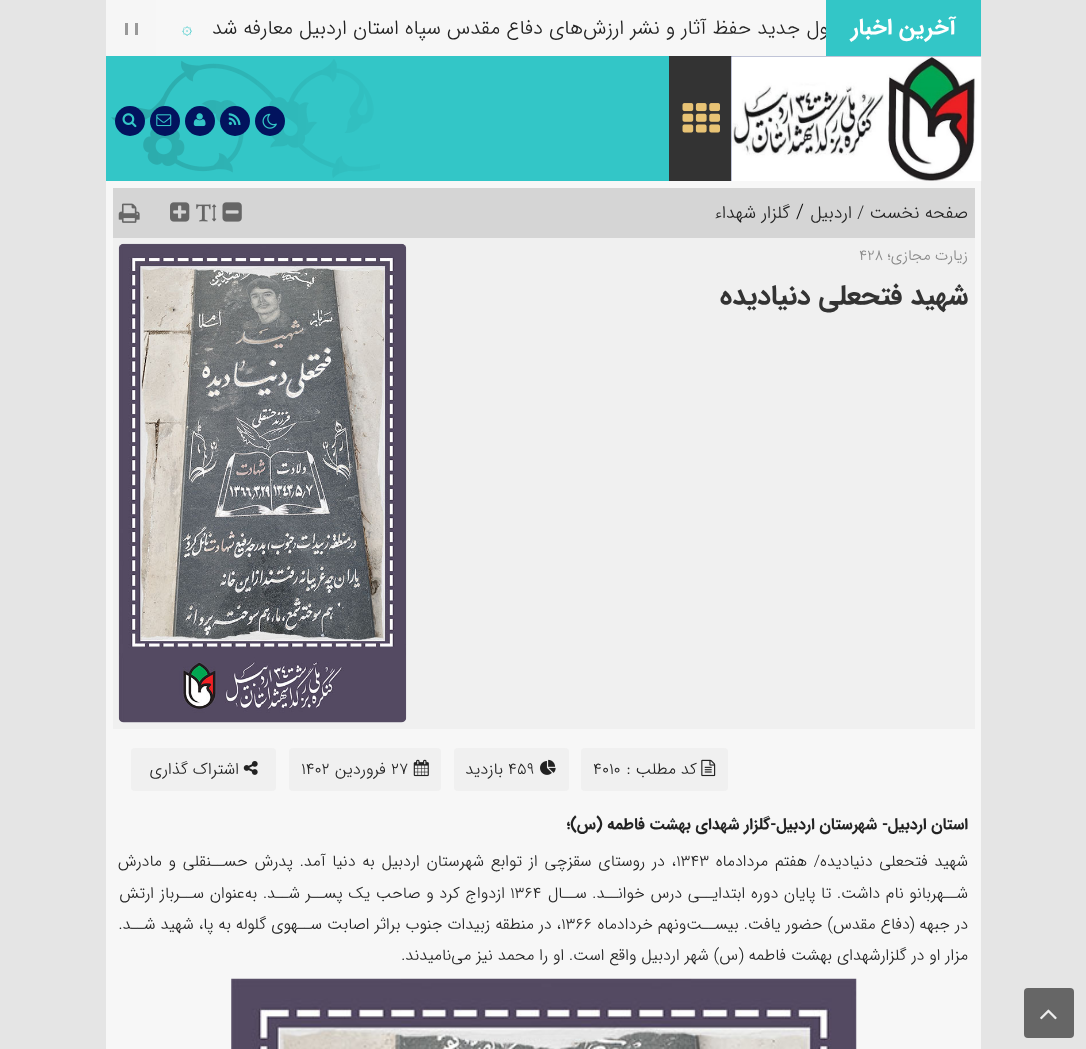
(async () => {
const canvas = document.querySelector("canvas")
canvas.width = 1086
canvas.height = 1049
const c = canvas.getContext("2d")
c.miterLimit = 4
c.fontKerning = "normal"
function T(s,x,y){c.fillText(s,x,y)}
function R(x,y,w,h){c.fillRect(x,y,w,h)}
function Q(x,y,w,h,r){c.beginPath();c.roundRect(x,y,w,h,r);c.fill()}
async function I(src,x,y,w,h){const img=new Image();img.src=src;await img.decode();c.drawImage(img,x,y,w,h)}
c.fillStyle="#e5e5e5"
R(0,0,1086,1049)
c.fillStyle="#f7f7f7"
R(156,0,670,56)
c.fillStyle="#33c6c7"
R(826,0,155,56)
c.direction="rtl"
c.font="bold 22.5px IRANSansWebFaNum"
c.fillStyle="#fff"
T("آخرین اخبار",956,34)
c.save()
c.beginPath()
c.rect(106,0,720,56)
c.clip()
c.font="300 20px IRANSansWebFaNum"
c.fillStyle="#222"
T("مسئول جدید حفظ آثار و نشر ارزش‌های دفاع مقدس سپاه استان اردبیل معارفه شد",862,34)
c.restore()
c.direction="ltr"
c.font="17.5px Cascadia Code"
c.fillStyle="#33c6c7"
T("۞",182,34)
c.fillStyle="#f6f6f6"
R(106,0,50,56)
c.fillStyle="#999"
R(135,23,3,12)
R(125,23,3,12)
c.fillStyle="#02135e"
R(731,56,250,125)
await I("1.png",731,56,251,126)
c.fillStyle="#333"
R(669,56,62,125)
await I("2.png",682,103,38,30)
c.fillStyle="#33c6c7"
R(106,56,563,125)
await I("3.png",111,59,269,119)
c.fillStyle="#02135e"
c.beginPath()
c.arc(270,121,15,0,7)
c.fill()
await I("4.png",262,113,15,16)
c.beginPath()
c.arc(235,121,15,0,7)
c.fill()
await I("5.png",228,113,13,12)
c.beginPath()
c.arc(200,121,15,0,7)
c.fill()
await I("6.png",193,113,13,14)
c.beginPath()
c.arc(165,121,15,0,7)
c.fill()
await I("7.png",156,114,16,13)
c.beginPath()
c.arc(130,121,15,0,7)
c.fill()
await I("8.png",122,113,15,15)
c.fillStyle="#f7f7f7"
R(106,181,875,868)
c.fillStyle="#d5d5d5"
R(113,188,862,50)
c.direction="rtl"
c.font="300 17.5px IRANSansWebFaNum"
c.fillStyle="#222"
T("صفحه نخست /",968,218)
T("اردبیل",852,218)
c.direction="ltr"
c.font="300 20px IRANSansWebFaNum"
c.fillStyle="#000"
T("/",796,218)
c.direction="rtl"
c.font="300 17.5px IRANSansWebFaNum"
c.fillStyle="#222"
T("گلزار شهداء",790,218)
await I("9.png",222,202,20,20)
await I("10.png",196,204,21,18)
await I("11.png",170,202,20,20)
await I("12.png",118,203,22,20)
c.fillStyle="#f0f0f0"
R(113,238,862,491)
c.font="300 15px IRANSansWebFaNum"
c.fillStyle="#888"
T("زیارت مجازی؛",968,260)
c.direction="ltr"
T("428",859,260)
c.direction="rtl"
c.font="bold 27.5px IRANSansWebFaNum"
c.fillStyle="#333"
T("شهید فتحعلی دنیادیده",968,304)
await I("13.png",118,243,289,480)
c.fillStyle="#f0f0f0"
Q(581,748,147,43,4)
await I("14.png",701,759,15,18)
c.font="300 16.25px IRANSansWebFaNum"
c.fillStyle="#222"
T("کد مطلب :",697,774)
c.direction="ltr"
T("4010",593,774)
c.fillStyle="#f0f0f0"
Q(454,748,115,43,4)
await I("15.png",540,759,16,16)
c.fillStyle="#222"
T("459",508,774)
c.direction="rtl"
T("بازدید",503,774)
c.fillStyle="#f0f0f0"
Q(289,748,152,43,4)
await I("16.png",413,759,16,18)
c.direction="ltr"
c.fillStyle="#222"
T("27",391,774)
c.direction="rtl"
T("فروردین",386,774)
c.direction="ltr"
T("1402",301,774)
c.fillStyle="#f0f0f0"
Q(131,748,145,43,4)
await I("17.png",243,761,15,14)
c.direction="rtl"
c.fillStyle="#222"
T("اشتراک گذاری",239,774)
c.font="bold 16px IRANSansWebFaNum"
T("استان اردبیل- شهرستان اردبیل-گلزار شهدای بهشت فاطمه (س)؛",968,829)
c.wordSpacing="1.9px"
c.font="300 16px IRANSansWebFaNum"
T("شهید فتحعلی دنیادیده/ هفتم مردادماه",968,866)
c.wordSpacing="0px"
c.direction="ltr"
T("۱۳۴۳",676,866)
c.wordSpacing="1.9px"
c.direction="rtl"
T("، در روستای سقزچی از توابع شهرستان اردبیل به دنیا آمد. پدرش حســنقلی و مادرش",676,866)
c.wordSpacing="0.75px"
T("شــهربانو نام داشت. تا پایان دوره ابتدایــی درس خوانــد. ســال",968,898)
c.wordSpacing="0px"
c.direction="ltr"
T("۱۳۶۴",510,898)
c.wordSpacing="0.75px"
c.direction="rtl"
T("ازدواج کرد و صاحب یک پســر شــد. به‌عنوان ســرباز ارتش",505,898)
c.wordSpacing="0.1px"
T("در جبهه (دفاع مقدس) حضور یافت. بیســت‌ونهم خردادماه",968,929)
c.wordSpacing="0px"
c.direction="ltr"
T("۱۳۶۶",561,929)
c.wordSpacing="0.1px"
c.direction="rtl"
T("، در منطقه زبیدات جنوب براثر اصابت ســهوی گلوله به پا، شهید شــد.",561,929)
c.wordSpacing="0px"
T("مزار او در گلزارشهدای بهشت فاطمه (س) شهر اردبیل واقع است. او را محمد نیز می‌نامیدند.",968,960)
await I("18.png",231,978,626,71)
c.fillStyle="#666"
Q(1024,988,50,50,4)
await I("19.png",1040,1009,17,11)
})()
